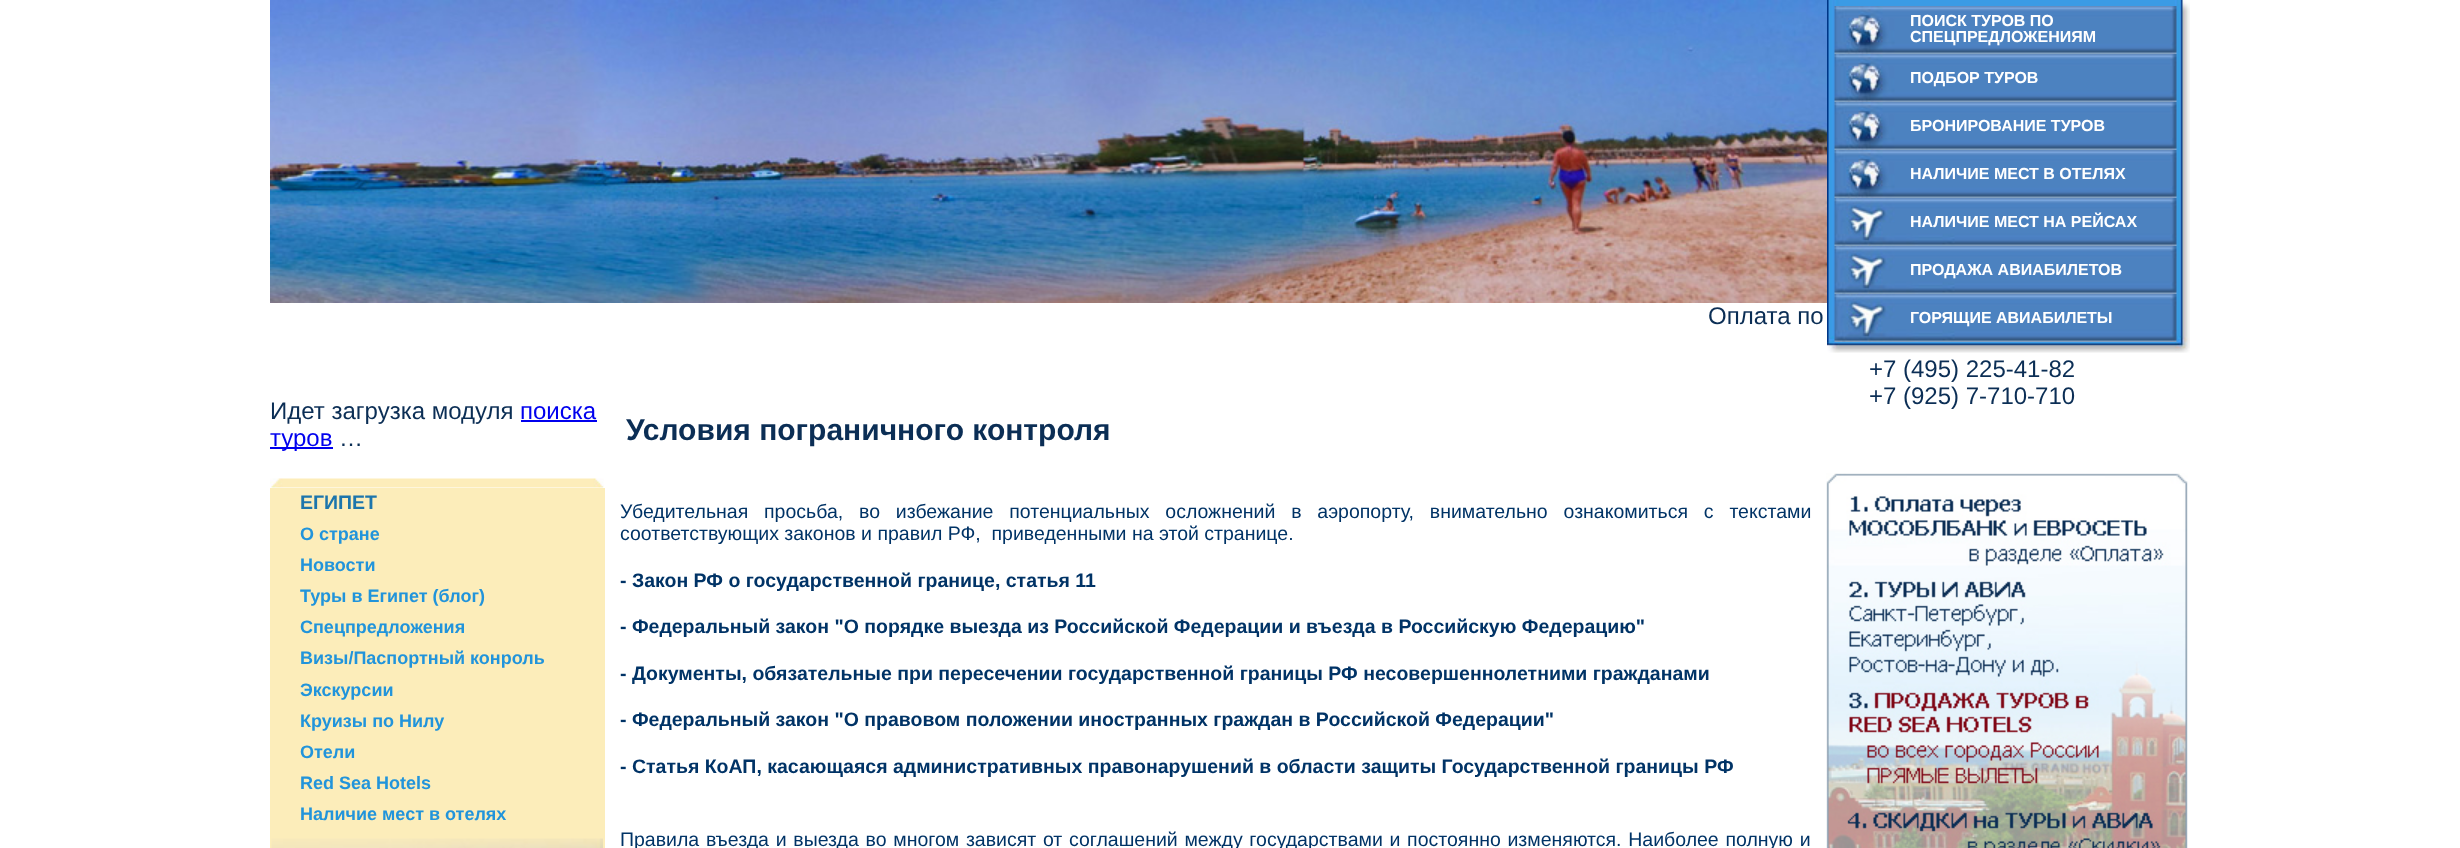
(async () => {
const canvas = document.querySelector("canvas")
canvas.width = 2460
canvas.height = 848
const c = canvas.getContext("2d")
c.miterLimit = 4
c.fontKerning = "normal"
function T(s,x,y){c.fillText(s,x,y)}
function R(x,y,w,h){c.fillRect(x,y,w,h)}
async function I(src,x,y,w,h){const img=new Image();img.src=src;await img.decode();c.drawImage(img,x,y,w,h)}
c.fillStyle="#fff"
R(0,0,2460,848)
await I("1.png",270,0,1557,303)
c.font="24px Liberation Sans"
c.fillStyle="#0b2e55"
T("Оплата по",1708,324)
await I("2.png",1827,0,363,353)
await I("3.png",1834,6,343,48)
c.font="bold 16px Liberation Sans"
c.fillStyle="#fff"
T("ПОИСК ТУРОВ ПО",1910,26)
T("СПЕЦПРЕДЛОЖЕНИЯМ",1910,42)
await I("3.png",1834,54,343,48)
T("ПОДБОР ТУРОВ",1910,83)
await I("3.png",1834,102,343,48)
T("БРОНИРОВАНИЕ ТУРОВ",1910,131)
await I("3.png",1834,150,343,48)
T("НАЛИЧИЕ МЕСТ В ОТЕЛЯХ",1910,179)
await I("4.png",1834,198,343,48)
T("НАЛИЧИЕ МЕСТ НА РЕЙСАХ",1910,227)
await I("4.png",1834,246,343,48)
T("ПРОДАЖА АВИАБИЛЕТОВ",1910,275)
await I("5.png",1834,294,343,48)
T("ГОРЯЩИЕ АВИАБИЛЕТЫ",1910,323)
c.font="24px Liberation Sans"
c.fillStyle="#0b2e55"
T("+7 (495) 225-41-82",1869,377)
T("+7 (925) 7-710-710",1869,404)
T("Идет загрузка модуля",270,419)
c.fillStyle="#00e"
T("поиска",520,419)
R(521,420,76,2)
R(270,447,63,2)
T("туров",270,446)
c.fillStyle="#0b2e55"
T("…",339,446)
await I("6.png",270,478,334,10)
c.fillStyle="#fcedba"
R(270,488,335,360)
await I("7.png",271,838,332,10)
c.font="bold 19.5px Liberation Sans"
c.fillStyle="#1c75ac"
T("ЕГИПЕТ",300,509)
c.font="bold 18px Liberation Sans"
c.fillStyle="#2194db"
T("О стране",300,540)
T("Новости",300,571)
T("Туры в Египет (блог)",300,602)
T("Спецпредложения",300,633)
T("Визы/Паспортный конроль",300,664)
T("Экскурсии",300,696)
T("Круизы по Нилу",300,727)
T("Отели",300,758)
T("Red Sea Hotels",300,789)
T("Наличие мест в отелях",300,820)
c.font="bold 30px Liberation Sans"
c.fillStyle="#0b2e55"
T("Условия пограничного контроля",626,440)
c.wordSpacing="10.4px"
c.font="19.5px Liberation Sans"
c.fillStyle="#036"
T("Убедительная просьба, во избежание потенциальных осложнений в аэропорту, внимательно ознакомиться с текстами",620,518)
c.wordSpacing="0px"
T("соответствующих законов и правил РФ,  приведенными на этой странице.",620,540)
c.font="bold 19.5px Liberation Sans"
T("- Закон РФ о государственной границе, статья 11",620,587)
T("- Федеральный закон \"О порядке выезда из Российской Федерации и въезда в Российскую Федерацию\"",620,633)
T("- Документы, обязательные при пересечении государственной границы РФ несовершеннолетними гражданами",620,680)
T("- Федеральный закон \"О правовом положении иностранных граждан в Российской Федерации\"",620,726)
T("- Статья КоАП, касающаяся административных правонарушений в области защиты Государственной границы РФ",620,773)
c.wordSpacing="1.3px"
c.font="19.5px Liberation Sans"
T("Правила въезда и выезда во многом зависят от соглашений между государствами и постоянно изменяются. Наиболее полную и",620,846)
await I("8.png",1826,473,362,375)
})()
